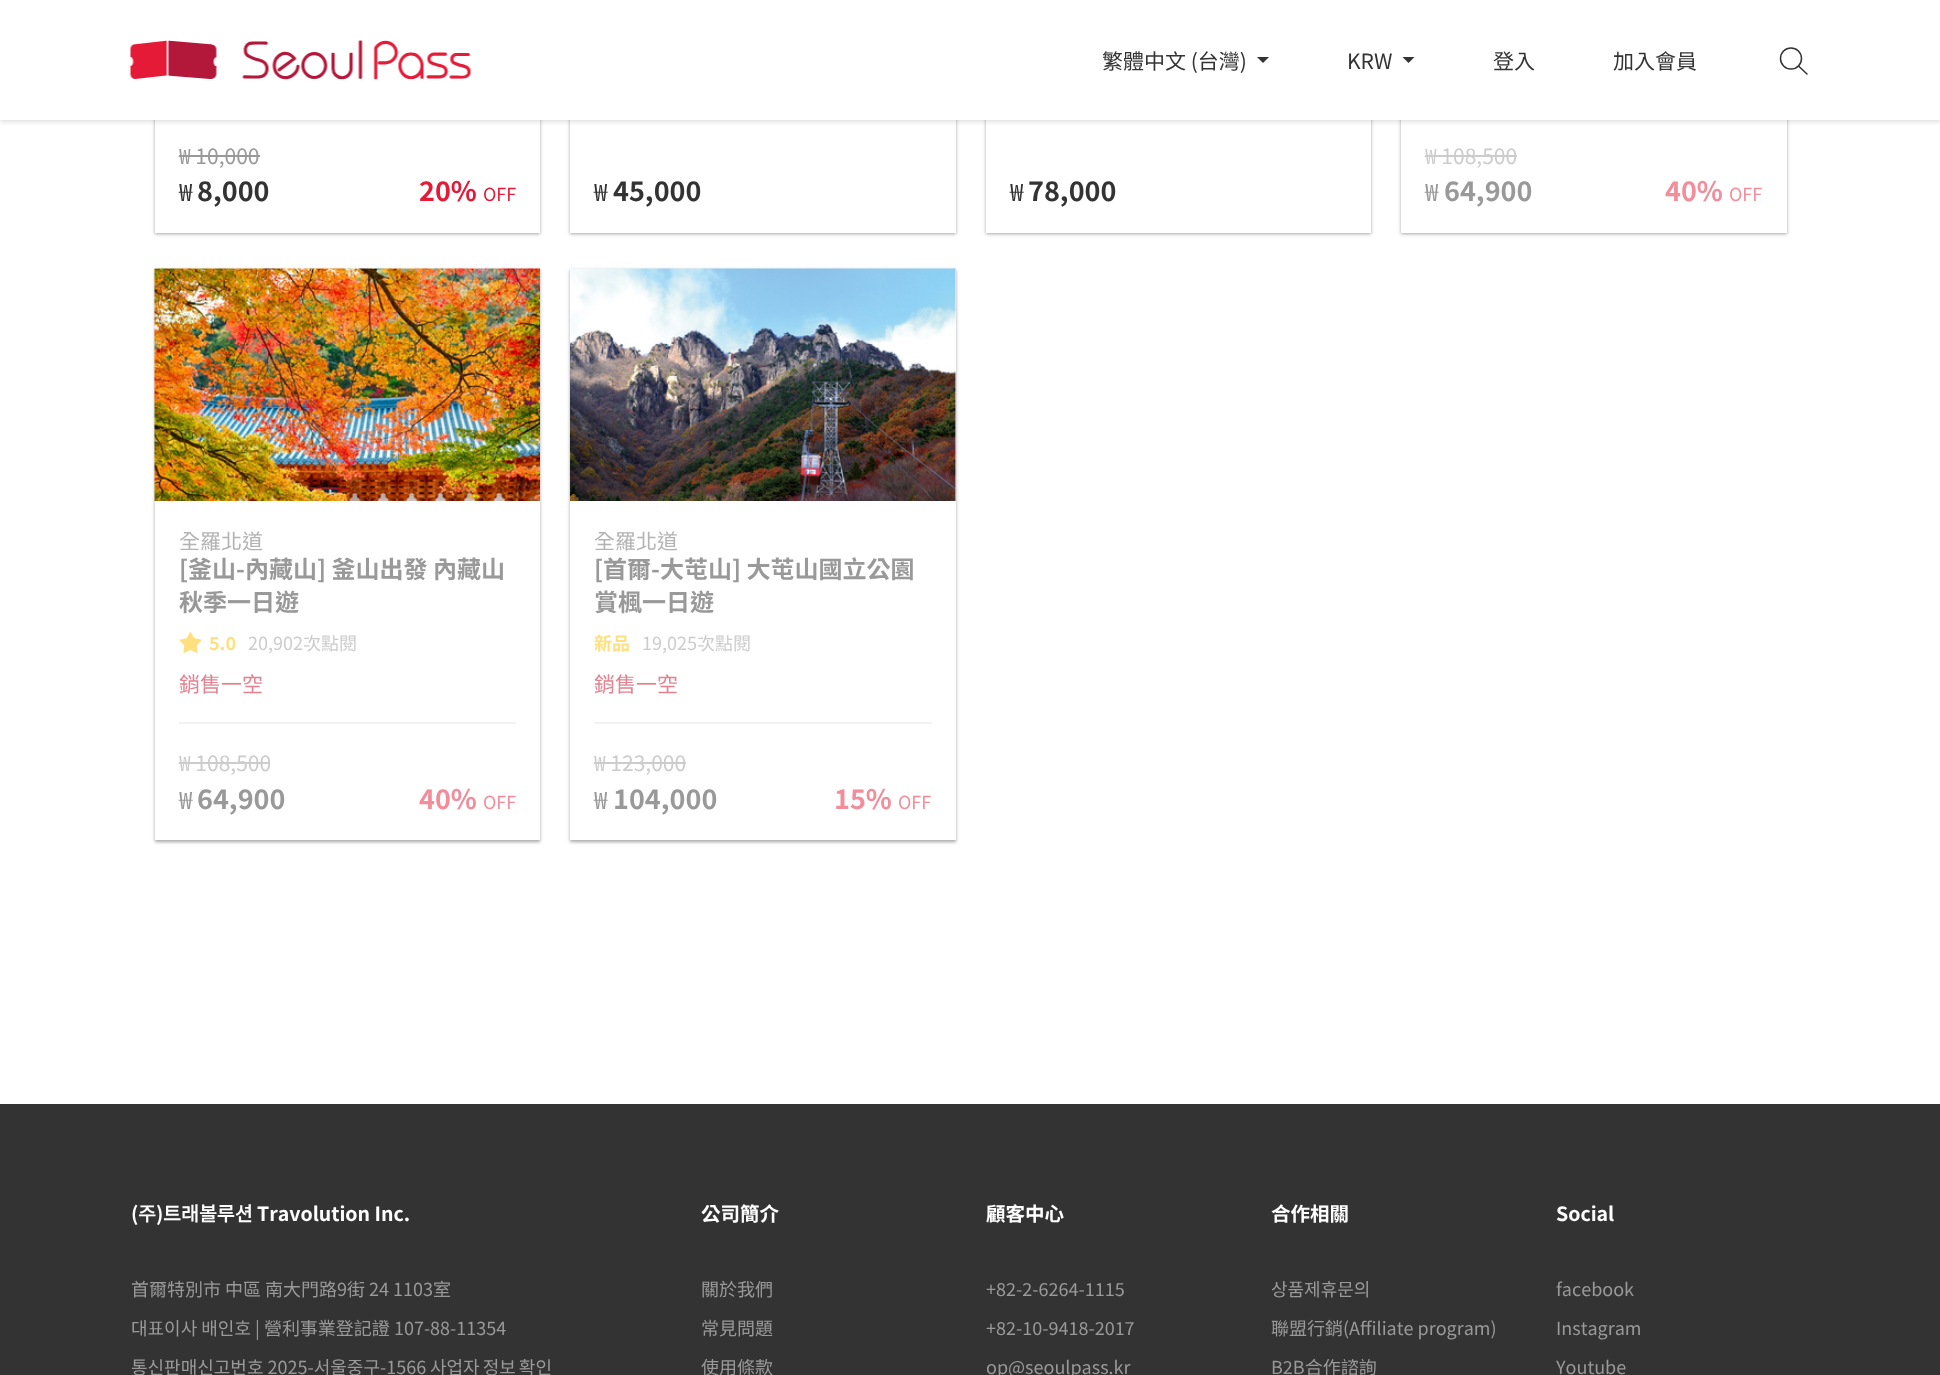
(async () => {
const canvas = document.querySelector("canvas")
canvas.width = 1940
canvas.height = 1375
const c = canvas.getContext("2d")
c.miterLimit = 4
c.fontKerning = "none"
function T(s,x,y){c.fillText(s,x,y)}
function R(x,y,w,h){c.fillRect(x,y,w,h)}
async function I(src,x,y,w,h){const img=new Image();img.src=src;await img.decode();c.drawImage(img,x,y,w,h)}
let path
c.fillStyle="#fff"
R(0,0,1940,1375)
c.fillStyle="#0000003d"
c.filter="blur(1.5px)"
c.beginPath()
c.rect(155,-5,385,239)
c.fill()
c.filter="none"
c.fillStyle="#0000001f"
c.filter="blur(2px)"
c.beginPath()
c.rect(155,-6,385,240)
c.fill()
c.filter="none"
c.fillStyle="#fff"
R(155,120,385,113)
c.fillStyle="#0000003d"
c.filter="blur(1.5px)"
c.beginPath()
c.rect(570,-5,386,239)
c.fill()
c.filter="none"
c.fillStyle="#0000001f"
c.filter="blur(2px)"
c.beginPath()
c.rect(570,-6,386,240)
c.fill()
c.filter="none"
c.fillStyle="#fff"
R(570,120,386,113)
c.fillStyle="#0000003d"
c.filter="blur(1.5px)"
c.beginPath()
c.rect(986,-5,385,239)
c.fill()
c.filter="none"
c.fillStyle="#0000001f"
c.filter="blur(2px)"
c.beginPath()
c.rect(986,-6,385,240)
c.fill()
c.filter="none"
c.fillStyle="#fff"
R(986,120,385,113)
c.save()
path = new Path2D("M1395 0h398v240h-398zm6-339h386v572h-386z")
c.clip(path,"evenodd")
c.fillStyle="#0000003d"
c.filter="blur(1.5px)"
c.beginPath()
c.rect(1401,-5,386,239)
c.fill()
c.filter="none"
c.restore()
c.save()
path = new Path2D("M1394 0h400v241h-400zm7-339h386v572h-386z")
c.clip(path,"evenodd")
c.fillStyle="#0000001f"
c.filter="blur(2px)"
c.beginPath()
c.rect(1401,-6,386,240)
c.fill()
c.filter="none"
c.restore()
c.fillStyle="#ffffff80"
R(1401,120,386,113)
c.fillStyle="#0000001f"
c.filter="blur(2px)"
c.beginPath()
c.rect(0,2,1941,120)
c.fill()
c.filter="none"
c.fillStyle="#fff"
R(0,0,1940,120)
await I("1.png",130,40,341,40)
c.font="21px Noto Sans TC"
c.fillStyle="#333"
T("繁體中文 (台灣)",1102,69)
path = new Path2D("M1257 57h12l-6 6z")
c.fill(path)
T("KRW",1347,69)
path = new Path2D("M1402.5 57h12l-6 6z")
c.fill(path)
T("登入",1493,69)
T("加入會員",1613,69)
c.beginPath()
c.arc(1791,58.5,10.5,0,7)
c.strokeStyle="#333"
c.lineWidth=1.5
c.stroke()
path = new Path2D("M1798.5 66l8.5 8")
c.lineCap="round"
c.lineJoin="round"
c.stroke(path)
c.fillStyle="#999"
T("₩ 10,000",179,164)
R(179,155,81,2)
c.font="24px Noto Sans TC"
c.fillStyle="#333"
T("₩",179,201)
c.font="bold 27px Noto Sans TC"
T("8,000",197,201)
c.fillStyle="#e41a37"
T("20%",419,201)
c.font="18px Noto Sans TC"
T("OFF",483,201)
c.font="24px Noto Sans TC"
c.fillStyle="#333"
T("₩",594,201)
c.font="bold 27px Noto Sans TC"
T("45,000",613,201)
c.font="24px Noto Sans TC"
T("₩",1010,201)
c.font="bold 27px Noto Sans TC"
T("78,000",1028,201)
c.font="21px Noto Sans TC"
c.fillStyle="#ccc"
T("₩ 108,500",1425,164)
R(1425,155,92,2)
c.font="24px Noto Sans TC"
c.fillStyle="#999"
T("₩",1425,201)
c.font="bold 27px Noto Sans TC"
T("64,900",1444,201)
c.fillStyle="#f28d9b"
T("40%",1665,201)
c.font="18px Noto Sans TC"
T("OFF",1729,201)
c.save()
path = new Path2D("M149 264h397v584h-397zm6 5h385v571h-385z")
c.clip(path,"evenodd")
c.fillStyle="#0000003d"
c.filter="blur(1.5px)"
c.beginPath()
c.rect(155,270,385,572)
c.fill()
c.filter="none"
c.restore()
c.save()
path = new Path2D("M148 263h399v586h-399zm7 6h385v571h-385z")
c.clip(path,"evenodd")
c.fillStyle="#0000001f"
c.filter="blur(2px)"
c.beginPath()
c.rect(155,270,385,572)
c.fill()
c.filter="none"
c.restore()
await I("2.png",154,268,386,233)
c.font="21px Noto Sans TC"
c.fillStyle="#b3b3b3"
T("全羅北道",179,549)
c.font="bold 24px Noto Sans TC"
c.fillStyle="#999"
T("[釜山-內藏山] 釜山出發 內藏山",179,578)
T("秋季一日遊",179,611)
await I("3.png",179,632,23,22)
c.font="bold 18px Noto Sans TC"
c.fillStyle="#ffe081"
T("5.0",209,650)
c.font="18px Noto Sans TC"
c.fillStyle="#ccc"
T("20,902次點閱",248,650)
c.font="21px Noto Sans TC"
c.fillStyle="#e28391"
T("銷售一空",179,692)
c.fillStyle="#f2f2f2"
R(179,722,337,2)
c.fillStyle="#ccc"
T("₩ 108,500",179,771)
R(179,762,91,2)
c.font="24px Noto Sans TC"
c.fillStyle="#999"
T("₩",179,809)
c.font="bold 27px Noto Sans TC"
T("64,900",197,809)
c.fillStyle="#f28d9b"
T("40%",419,809)
c.font="18px Noto Sans TC"
T("OFF",483,809)
c.save()
path = new Path2D("M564 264h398v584h-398zm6 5h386v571h-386z")
c.clip(path,"evenodd")
c.fillStyle="#0000003d"
c.filter="blur(1.5px)"
c.beginPath()
c.rect(570,270,386,572)
c.fill()
c.filter="none"
c.restore()
c.save()
path = new Path2D("M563 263h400v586h-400zm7 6h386v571h-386z")
c.clip(path,"evenodd")
c.fillStyle="#0000001f"
c.filter="blur(2px)"
c.beginPath()
c.rect(570,270,386,572)
c.fill()
c.filter="none"
c.restore()
await I("4.png",570,268,386,233)
c.fillStyle="#ffffff80"
R(955,501,1,339)
c.font="21px Noto Sans TC"
c.fillStyle="#b3b3b3"
T("全羅北道",594,549)
c.font="bold 24px Noto Sans TC"
c.fillStyle="#999"
T("[首爾-大芚山] 大芚山國立公園",594,578)
T("賞楓一日遊",594,611)
c.font="bold 18px Noto Sans TC"
c.fillStyle="#ffe081"
T("新品",594,650)
c.font="18px Noto Sans TC"
c.fillStyle="#ccc"
T("19,025次點閱",642,650)
c.font="21px Noto Sans TC"
c.fillStyle="#e28391"
T("銷售一空",594,692)
c.fillStyle="#f2f2f2"
R(594,722,338,2)
c.fillStyle="#ccc"
T("₩ 123,000",594,771)
R(594,762,92,2)
c.font="24px Noto Sans TC"
c.fillStyle="#999"
T("₩",594,809)
c.font="bold 27px Noto Sans TC"
T("104,000",613,809)
c.fillStyle="#f28d9b"
T("15%",834,809)
c.font="18px Noto Sans TC"
T("OFF",898,809)
c.fillStyle="#333"
R(0,1104,1940,271)
c.font="bold 19.5px Noto Sans TC"
c.fillStyle="#fff"
T("(",131,1221)
c.font="bold 19.5px Noto Sans CJK TC"
T("주",138,1221)
c.font="bold 19.5px Noto Sans TC"
T(")",156,1221)
c.font="bold 19.5px Noto Sans CJK TC"
T("트래볼루션",163,1221)
c.font="bold 19.5px Noto Sans TC"
T("Travolution Inc.",257,1221)
c.font="18px Noto Sans TC"
c.fillStyle="#999"
T("首爾特別市 中區 南大門路9街 24 1103室",131,1296)
c.font="18px Noto Sans CJK TC"
T("대표이사 배인호 | 營利事業登記證 107-88-11354",131,1335)
T("통신판매신고번호 2025-서울중구-1566",131,1374)
c.wordSpacing="-1px"
T("사업자 정보 확인",430,1374)
c.wordSpacing="0px"
c.font="bold 19.5px Noto Sans TC"
c.fillStyle="#fff"
T("公司簡介",701,1221)
c.font="18px Noto Sans TC"
c.fillStyle="#999"
T("關於我們",701,1296)
T("常見問題",701,1335)
T("使用條款",701,1374)
c.font="bold 19.5px Noto Sans TC"
c.fillStyle="#fff"
T("顧客中心",986,1221)
c.font="18px Noto Sans TC"
c.fillStyle="#999"
T("+82-2-6264-1115",986,1296)
T("+82-10-9418-2017",986,1335)
T("op@seoulpass.kr",986,1374)
c.font="bold 19.5px Noto Sans TC"
c.fillStyle="#fff"
T("合作相關",1271,1221)
c.font="18px Noto Sans CJK TC"
c.fillStyle="#999"
T("상품제휴문의",1271,1296)
c.font="18px Noto Sans TC"
T("聯盟行銷(Affiliate program)",1271,1335)
T("B2B合作諮詢",1271,1374)
c.font="bold 19.5px Noto Sans TC"
c.fillStyle="#fff"
T("Social",1556,1221)
c.font="18px Noto Sans TC"
c.fillStyle="#999"
T("facebook",1556,1296)
T("Instagram",1556,1335)
T("Youtube",1556,1374)
})()
